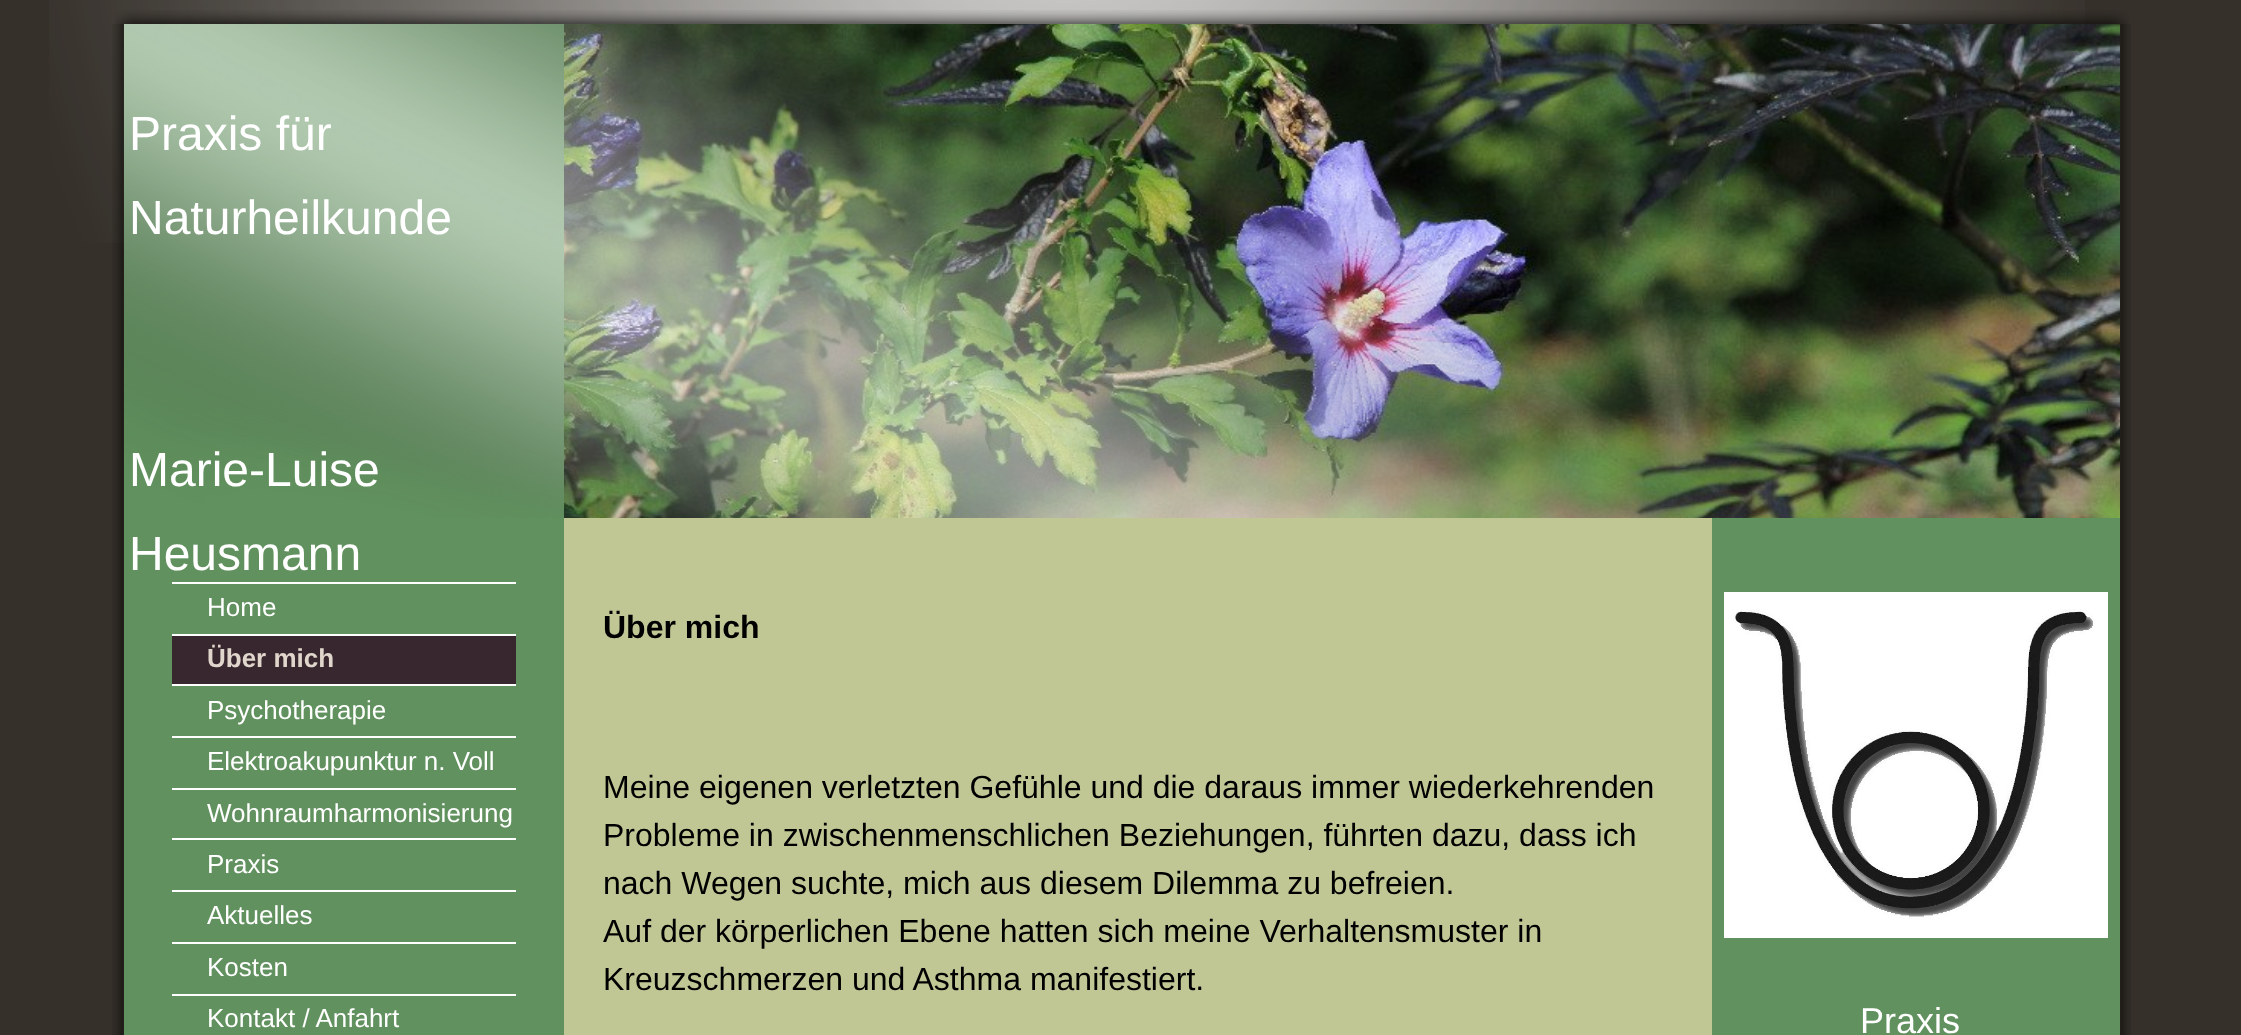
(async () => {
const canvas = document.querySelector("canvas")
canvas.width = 2241
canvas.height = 1035
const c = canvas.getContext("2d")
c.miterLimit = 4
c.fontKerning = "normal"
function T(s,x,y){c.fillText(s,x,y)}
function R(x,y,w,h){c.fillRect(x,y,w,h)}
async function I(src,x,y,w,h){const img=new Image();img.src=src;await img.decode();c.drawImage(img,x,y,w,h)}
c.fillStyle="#35302a"
R(0,0,2241,1035)
await I("1.png",49,0,2036,243)
await I("2.png",115,10,2014,14)
await I("3.png",112,24,2019,1011)
c.fillStyle="#61915e"
R(124,24,440,1011)
await I("5.png",564,24,1556,494)
await I("4.png",124,24,1806,494)
c.font="48px Liberation Sans"
c.fillStyle="#fff"
T("Praxis für",129,150)
T("Naturheilkunde",129,234)
T("Marie-Luise",129,486)
T("Heusmann",129,570)
R(172,582,344,2)
c.font="26px Liberation Sans"
T("Home",207,616)
c.fillStyle="#38272f"
R(172,636,344,48)
c.fillStyle="#fff"
R(172,634,344,2)
c.font="bold 26px Liberation Sans"
c.fillStyle="#e0d6cc"
T("Über mich",207,667)
c.fillStyle="#fff"
R(172,684,344,2)
c.font="26px Liberation Sans"
T("Psychotherapie",207,719)
R(172,736,344,2)
T("Elektroakupunktur n. Voll",207,770)
R(172,788,344,2)
T("Wohnraumharmonisierung",207,822)
R(172,838,344,2)
T("Praxis",207,873)
R(172,890,344,2)
T("Aktuelles",207,924)
R(172,942,344,2)
T("Kosten",207,976)
R(172,994,344,2)
T("Kontakt / Anfahrt",207,1027)
c.fillStyle="#c0c795"
R(564,518,1148,517)
c.font="bold 32px Liberation Sans"
c.fillStyle="#000"
T("Über mich",603,638)
c.font="32px Liberation Sans"
T("Meine eigenen verletzten Gefühle und die daraus immer wiederkehrenden",603,798)
T("Probleme in zwischenmenschlichen Beziehungen, führten dazu, dass ich",603,846)
T("nach Wegen suchte, mich aus diesem Dilemma zu befreien.",603,894)
T("Auf der körperlichen Ebene hatten sich meine Verhaltensmuster in",603,942)
T("Kreuzschmerzen und Asthma manifestiert.",603,990)
c.fillStyle="#61915e"
R(1712,518,408,517)
await I("6.png",1724,592,384,346)
c.font="36px Liberation Sans"
c.fillStyle="#fff"
T("Praxis",1860,1033)
})()
